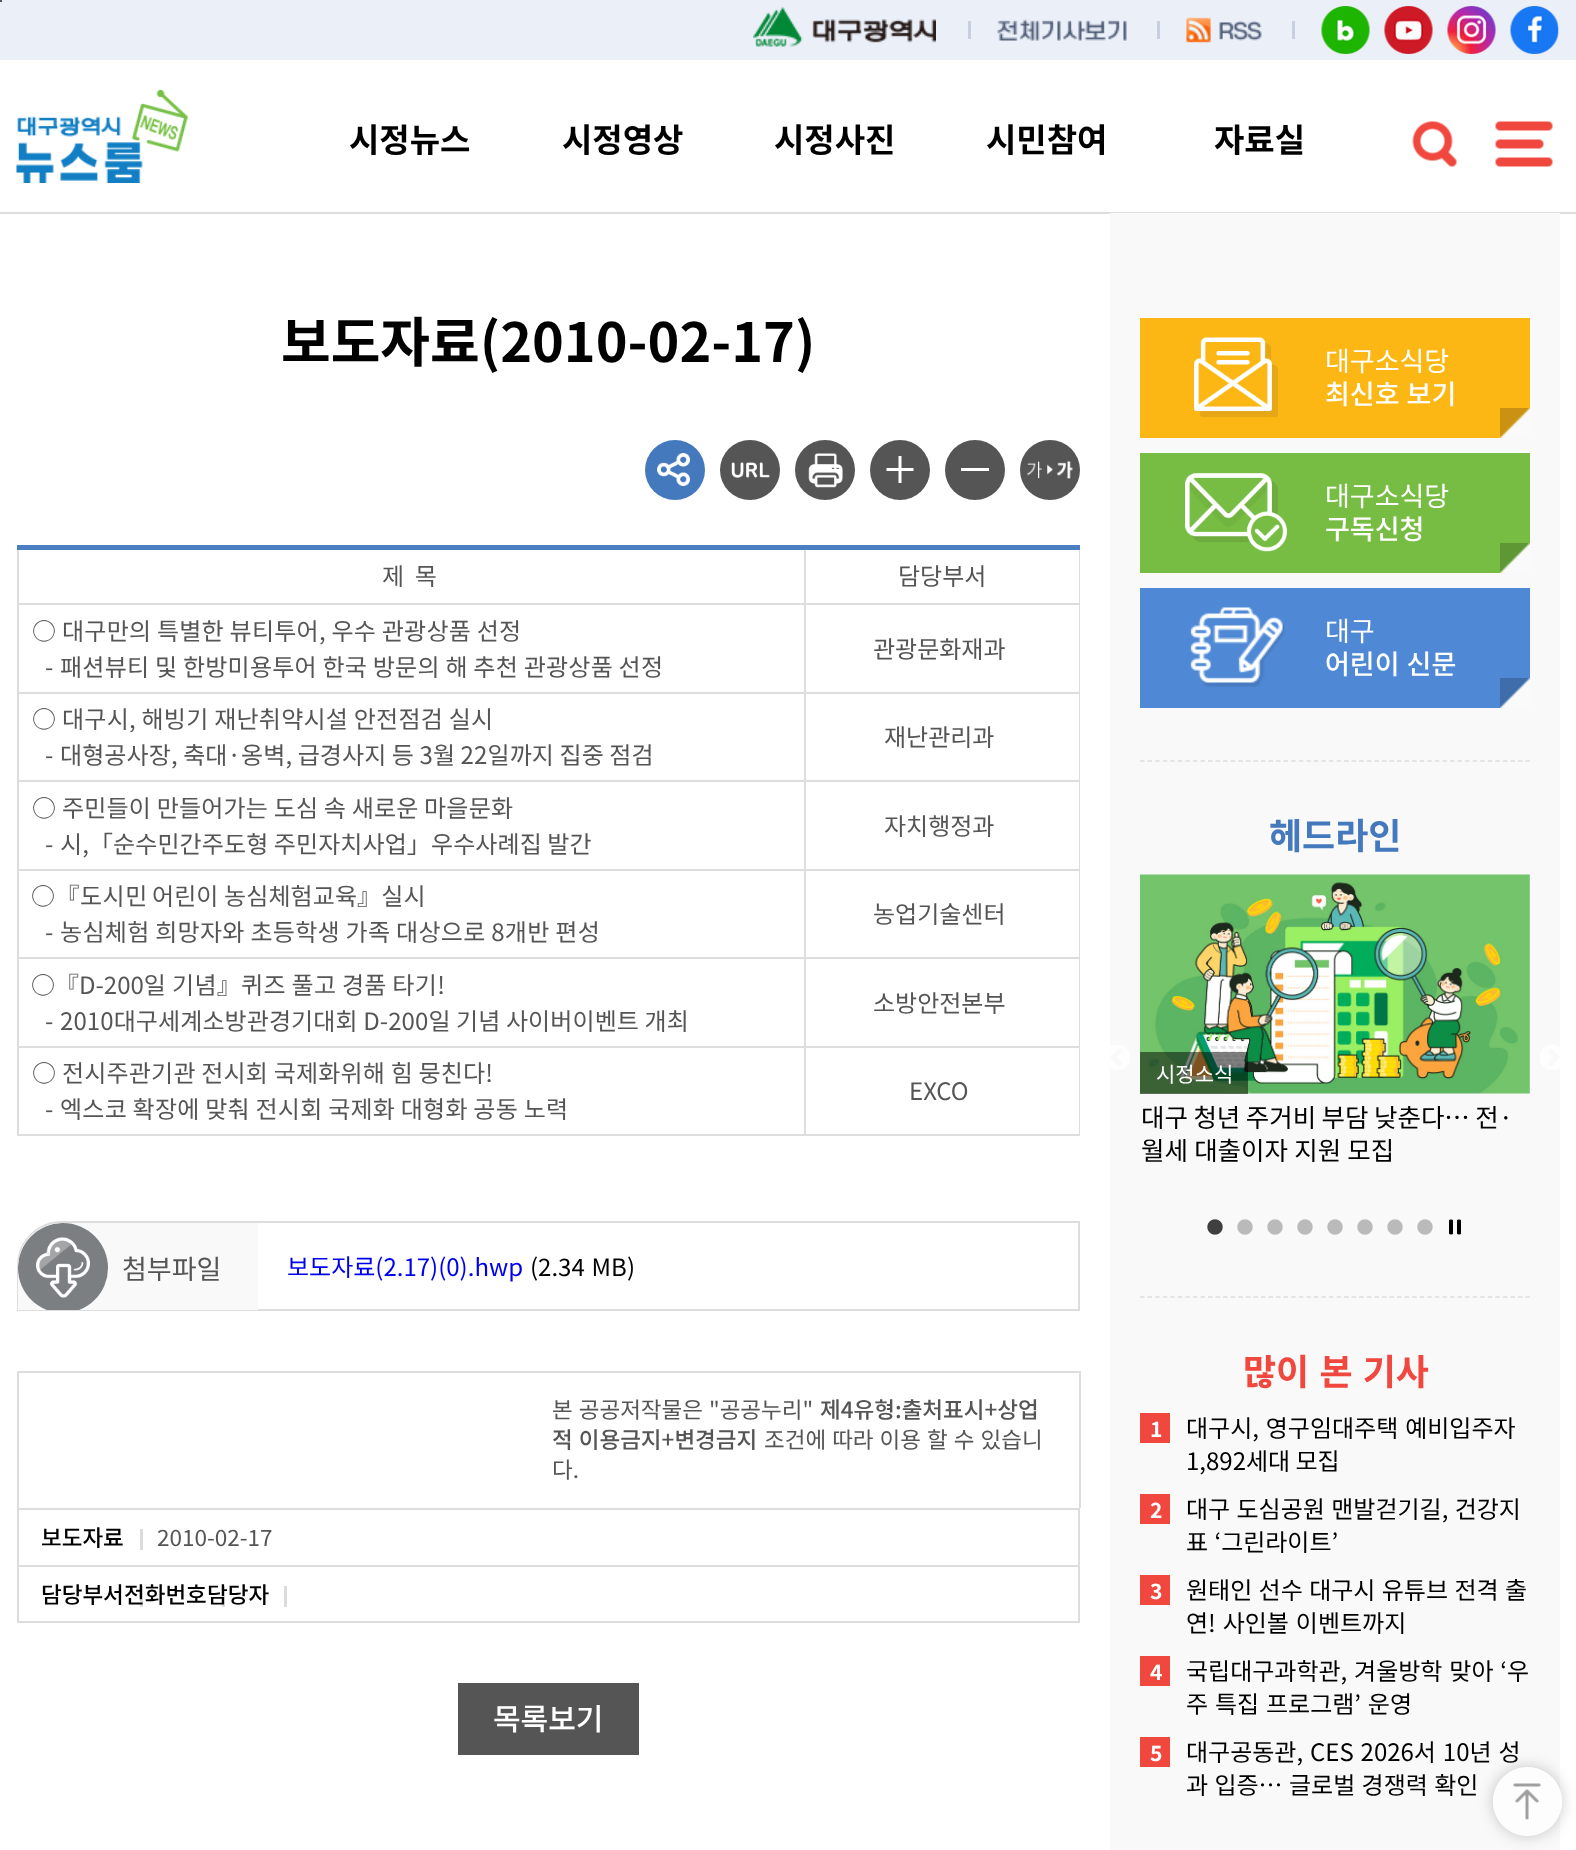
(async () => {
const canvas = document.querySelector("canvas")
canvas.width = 1576
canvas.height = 1850
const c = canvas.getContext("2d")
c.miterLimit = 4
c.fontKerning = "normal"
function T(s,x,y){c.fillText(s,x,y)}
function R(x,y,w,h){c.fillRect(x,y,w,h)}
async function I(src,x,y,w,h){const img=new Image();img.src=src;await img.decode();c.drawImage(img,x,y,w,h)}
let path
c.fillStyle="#fff"
R(0,0,1576,1850)
c.fillStyle="#ebeff8"
R(0,0,1576,60)
c.fillStyle="#555"
R(0,0,2,2)
await I("1.png",753,7,183,40)
c.fillStyle="#c7cedf"
R(968,21,3,18)
await I("2.png",997,19,130,22)
R(1157,21,3,18)
await I("3.png",1186,17,76,26)
R(1292,21,3,18)
await I("4.png",1321,6,49,48)
await I("5.png",1384,6,49,48)
await I("6.png",1447,6,49,48)
await I("7.png",1510,6,49,48)
c.fillStyle="#ddd"
R(0,212,1576,2)
await I("8.png",16,90,172,93)
c.font="bold 33px Noto Sans KR"
c.fillStyle="#000"
T("시정뉴스",349,152)
T("시정영상",562,152)
T("시정사진",774,152)
T("시민참여",986,152)
T("자료실",1214,152)
await I("9.png",1412,121,45,46)
await I("10.png",1495,121,58,46)
c.font="bold 54px Noto Sans KR"
T("보도자료(2010-02-17)",281,362)
c.fillStyle="#4579bd"
c.beginPath()
c.arc(675,470,30,0,7)
c.fill()
await I("11.png",657,453,33,33)
c.fillStyle="#555"
c.beginPath()
c.arc(750,470,30,0,7)
c.fill()
await I("12.png",731,462,39,16)
c.beginPath()
c.arc(825,470,30,0,7)
c.fill()
await I("13.png",808,453,35,35)
c.beginPath()
c.arc(900,470,30,0,7)
c.fill()
await I("14.png",886,456,28,27)
c.beginPath()
c.arc(975,470,30,0,7)
c.fill()
c.fillStyle="#fff"
R(961,468,28,3)
c.fillStyle="#555"
c.beginPath()
c.arc(1050,470,30,0,7)
c.fill()
await I("15.png",1027,460,46,19)
c.fillStyle="#ddd"
R(804,603,276,2)
R(804,692,276,2)
R(804,780,276,2)
R(804,869,276,2)
R(804,957,276,2)
R(804,1046,276,2)
R(1079,1046,1,90)
R(804,1134,276,2)
R(804,1046,2,90)
R(17,1046,789,2)
R(804,957,2,90)
R(17,957,789,2)
R(804,869,2,90)
R(17,869,789,2)
R(804,780,2,90)
R(17,780,789,2)
R(804,692,2,90)
R(17,692,789,2)
R(804,603,2,90)
R(17,603,789,2)
R(804,546,2,59)
R(17,1134,789,2)
R(17,1046,2,90)
R(17,957,2,90)
R(17,869,2,90)
R(17,780,2,90)
R(17,692,2,90)
R(17,546,2,147)
R(1079,957,1,90)
R(1079,869,1,90)
R(1079,780,1,90)
R(1079,692,1,90)
R(1079,546,1,147)
c.fillStyle="#4a80c1"
R(17,545,1063,5)
c.font="24px Noto Sans KR"
c.fillStyle="#555"
T("제  목",382,585)
T("담당부서",898,585)
T("○",32,640)
c.letterSpacing="0.25px"
T("대구만의 특별한 뷰티투어, 우수 관광상품 선정",62,640)
c.letterSpacing="0px"
T("-",45,676)
c.letterSpacing="0.25px"
T("패션뷰티 및 한방미용투어 한국 방문의 해 추천 관광상품 선정",60,676)
c.letterSpacing="0px"
T("관광문화재과",873,658)
T("○",32,728)
c.letterSpacing="0.25px"
T("대구시, 해빙기 재난취약시설 안전점검 실시",62,728)
c.letterSpacing="0px"
T("-",45,764)
c.letterSpacing="0.1px"
T("대형공사장, 축대·옹벽, 급경사지 등 3월 22일까지 집중 점검",60,764)
c.letterSpacing="0px"
T("재난관리과",884,746)
T("○",32,817)
c.letterSpacing="0.2px"
T("주민들이 만들어가는 도심 속 새로운 마을문화",62,817)
c.letterSpacing="0px"
T("-",45,853)
c.letterSpacing="0.1px"
T("시,「순수민간주도형 주민자치사업」우수사례집 발간",60,853)
c.letterSpacing="0px"
T("자치행정과",884,835)
c.letterSpacing="0.5px"
T("○『도시민",31,905)
c.letterSpacing="0.1px"
T("어린이 농심체험교육』실시",152,905)
c.letterSpacing="0px"
T("-",45,941)
c.letterSpacing="0.3px"
T("농심체험 희망자와 초등학생 가족 대상으로 8개반 편성",60,941)
c.letterSpacing="0px"
T("농업기술센터",873,923)
T("○『D-200일",31,994)
c.letterSpacing="0.3px"
T("기념』퀴즈 풀고 경품 타기!",172,994)
c.letterSpacing="0px"
T("-",45,1030)
c.letterSpacing="0.1px"
T("2010대구세계소방관경기대회 D-200일 기념 사이버이벤트 개최",60,1030)
c.letterSpacing="0px"
T("소방안전본부",873,1012)
T("○",32,1082)
c.letterSpacing="0.2px"
T("전시주관기관 전시회 국제화위해 힘 뭉친다!",62,1082)
c.letterSpacing="0px"
T("-",45,1118)
c.letterSpacing="0.25px"
T("엑스코 확장에 맞춰 전시회 국제화 대형화 공동 노력",60,1118)
c.letterSpacing="0px"
T("EXCO",909,1100)
c.beginPath()
c.roundRect(18,1222,1061,88,[44,0,0,0])
c.strokeStyle="#ddd"
c.lineWidth=2
c.stroke()
c.fillStyle="#f9f9f9"
c.beginPath()
c.roundRect(18,1223,240,87,[43.5,0,0,0])
c.fill()
c.save()
c.beginPath()
c.roundRect(18,1223,1061,87,[43.5,0,0,0])
c.clip()
c.fillStyle="#7c7f82"
c.beginPath()
c.arc(63,1268,45,0,7)
c.fill()
c.restore()
await I("16.png",36,1237,54,61)
c.font="27px Noto Sans KR"
c.fillStyle="#555"
T("첨부파일",122,1279)
c.font="24px Noto Sans KR"
c.fillStyle="#00e"
T("보도자료(2.17)(0).hwp",287,1276)
c.wordSpacing="1.5px"
c.fillStyle="#000"
T("(2.34 MB)",530,1276)
c.fillStyle="#ddd"
R(17,1371,1063,2)
R(1079,1371,2,137)
R(17,1371,2,137)
c.wordSpacing="1px"
c.font="22.5px Noto Sans KR"
c.fillStyle="#555"
T("본 공공저작물은 \"공공누리\"",552,1418)
c.wordSpacing="0px"
c.font="500 22.5px Noto Sans KR"
T("제4유형:출처표시+상업",820,1418)
c.wordSpacing="1px"
T("적 이용금지+변경금지",552,1448)
c.font="22.5px Noto Sans KR"
T("조건에 따라 이용 할 수 있습니",764,1448)
c.wordSpacing="0px"
T("다.",552,1478)
c.strokeRect(18,1509,1061,113)
c.font="500 22.5px Noto Sans KR"
c.fillStyle="#000"
T("보도자료",41,1546)
c.fillStyle="#dcdcdc"
R(140,1529,3,21)
c.font="22.5px Noto Sans KR"
c.fillStyle="#555"
T("2010-02-17",157,1546)
c.fillStyle="#ddd"
R(18,1565,1061,2)
c.font="500 22.5px Noto Sans KR"
c.fillStyle="#000"
T("담당부서",41,1603)
c.fillStyle="#dcdcdc"
R(140,1586,3,21)
c.fillStyle="#000"
T("전화번호",124,1603)
c.fillStyle="#dcdcdc"
R(222,1586,3,21)
c.fillStyle="#000"
T("담당자",207,1603)
c.fillStyle="#dcdcdc"
R(284,1586,3,21)
c.fillStyle="#555"
R(458,1683,181,72)
c.font="500 30px Noto Sans KR"
c.fillStyle="#fff"
T("목록보기",493,1730)
c.fillStyle="#f9f9f9"
R(1110,213,450,1637)
c.fillStyle="#fdb714"
R(1140,318,390,120)
await I("17.png",1500,408,30,30)
await I("18.png",1194,337,84,80)
c.font="27px Noto Sans KR"
c.fillStyle="#fff"
T("대구소식당",1325,371)
c.wordSpacing="1px"
c.font="500 27px Noto Sans KR"
T("최신호 보기",1325,404)
c.fillStyle="#77bd43"
R(1140,453,390,120)
await I("19.png",1500,543,30,30)
await I("20.png",1185,473,102,79)
c.wordSpacing="0px"
c.font="27px Noto Sans KR"
c.fillStyle="#fff"
T("대구소식당",1325,506)
c.font="500 27px Noto Sans KR"
T("구독신청",1325,539)
c.fillStyle="#4f89d6"
R(1140,588,390,120)
await I("21.png",1500,678,30,30)
await I("22.png",1190,607,95,80)
c.font="27px Noto Sans KR"
c.fillStyle="#fff"
T("대구",1325,641)
c.wordSpacing="1px"
c.font="500 27px Noto Sans KR"
T("어린이 신문",1325,674)
path = new Path2D("M1140 761h390")
c.lineWidth=1.5
c.setLineDash([4.5,3.06])
c.stroke(path)
c.wordSpacing="0px"
c.font="bold 36px Noto Sans KR"
c.fillStyle="#4579bd"
T("헤드라인",1269,849)
await I("23.png",1110,1045,20,25)
await I("24.png",1540,1045,20,25)
await I("25.png",1140,874,390,220)
c.fillStyle="#00000080"
R(1140,1052,108,42)
c.font="21px Noto Sans KR"
c.fillStyle="#fff"
T("시정소식",1156,1082)
c.wordSpacing="-0.25px"
c.font="25.5px Noto Sans KR"
c.fillStyle="#000"
T("대구 청년 주거비 부담 낮춘다… 전·",1141,1127)
c.wordSpacing="0.5px"
T("월세 대출이자 지원 모집",1141,1160)
await I("26.png",1207,1219,16,16)
await I("27.png",1237,1219,16,16)
await I("27.png",1267,1219,16,16)
await I("27.png",1297,1219,16,16)
await I("27.png",1327,1219,16,16)
await I("27.png",1357,1219,16,16)
await I("27.png",1387,1219,16,16)
await I("27.png",1417,1219,16,16)
await I("28.png",1449,1219,12,16)
path = new Path2D("M1140 1297h390")
c.stroke(path)
c.wordSpacing="2px"
c.font="bold 36px Noto Sans KR"
c.fillStyle="#f0483e"
T("많이 본 기사",1243,1385)
R(1140,1413,30,30)
c.wordSpacing="0px"
c.font="bold 21px Noto Sans KR"
c.fillStyle="#fff"
T("1",1150,1437)
c.wordSpacing="1.5px"
c.font="24px Noto Sans KR"
c.fillStyle="#000"
T("대구시, 영구임대주택 예비입주자",1186,1437)
c.wordSpacing="0px"
T("1,892세대 모집",1186,1470)
c.fillStyle="#f0483e"
R(1140,1494,30,30)
c.font="bold 21px Noto Sans KR"
c.fillStyle="#fff"
T("2",1150,1518)
c.wordSpacing="1px"
c.font="24px Noto Sans KR"
c.fillStyle="#000"
T("대구 도심공원 맨발걷기길, 건강지",1186,1518)
T("표 ‘그린라이트’",1186,1551)
c.fillStyle="#f0483e"
R(1140,1575,30,30)
c.wordSpacing="0px"
c.font="bold 21px Noto Sans KR"
c.fillStyle="#fff"
T("3",1150,1599)
c.wordSpacing="1px"
c.font="24px Noto Sans KR"
c.fillStyle="#000"
T("원태인 선수 대구시 유튜브 전격 출",1186,1599)
c.wordSpacing="1.5px"
T("연! 사인볼 이벤트까지",1186,1632)
c.fillStyle="#f0483e"
R(1140,1656,30,30)
c.wordSpacing="0px"
c.font="bold 21px Noto Sans KR"
c.fillStyle="#fff"
T("4",1150,1680)
c.wordSpacing="1.5px"
c.font="24px Noto Sans KR"
c.fillStyle="#000"
T("국립대구과학관, 겨울방학 맞아 ‘우",1186,1680)
T("주 특집 프로그램’ 운영",1186,1713)
c.fillStyle="#f0483e"
R(1140,1737,30,30)
c.wordSpacing="0px"
c.font="bold 21px Noto Sans KR"
c.fillStyle="#fff"
T("5",1150,1761)
c.wordSpacing="1.5px"
c.font="24px Noto Sans KR"
c.fillStyle="#000"
T("대구공동관, CES 2026서 10년 성",1186,1761)
c.wordSpacing="1px"
T("과 입증… 글로벌 경쟁력 확인",1186,1794)
c.save()
path = new Path2D("M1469 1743h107v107h-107zm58.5 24c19 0 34.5 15.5 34.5 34.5c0 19-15.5 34.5-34.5 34.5c-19 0-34.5-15.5-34.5-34.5c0-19 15.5-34.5 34.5-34.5z")
c.clip(path,"evenodd")
c.fillStyle="#00000036"
c.filter="blur(7.5px)"
c.beginPath()
c.roundRect(1493,1767,69,69,34.5)
c.fill()
c.filter="none"
c.restore()
c.fillStyle="#ffffffb3"
c.beginPath()
c.arc(1527.5,1801.5,34.5,0,7)
c.fill()
await I("29.png",1513,1783,28,37)
})()
